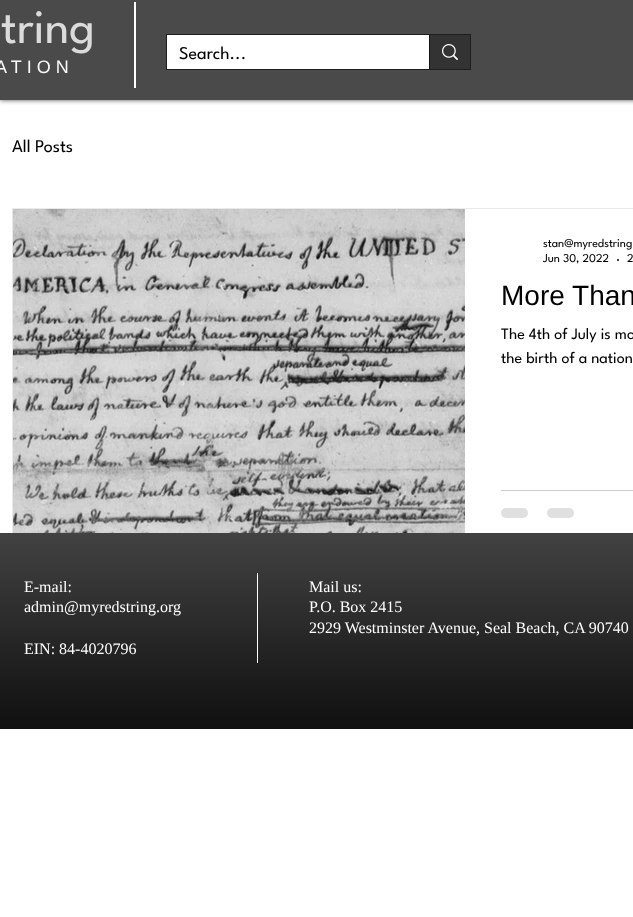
(async () => {
const canvas = document.querySelector("canvas")
canvas.width = 633
canvas.height = 917
const c = canvas.getContext("2d")
c.miterLimit = 4
c.fontKerning = "normal"
function T(s,x,y){c.fillText(s,x,y)}
function R(x,y,w,h){c.fillRect(x,y,w,h)}
function Q(x,y,w,h,r){c.beginPath();c.roundRect(x,y,w,h,r);c.fill()}
async function I(src,x,y,w,h){const img=new Image();img.src=src;await img.decode();c.drawImage(img,x,y,w,h)}
c.fillStyle="#fff"
R(0,0,633,917)
c.fillStyle="#000000b3"
c.filter="blur(2.5px)"
c.beginPath()
c.rect(0,0,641,100)
c.fill()
c.filter="none"
c.fillStyle="#4a4a4a"
R(0,0,633,100)
c.font="48px League Spartan"
c.fillStyle="#dbdbdb"
T("tring",1,43)
c.letterSpacing="5px"
c.font="18px Liberation Sans"
c.fillStyle="#f9f9f9"
T("ATION",-5,73)
c.fillStyle="#fff"
R(134,2,2,86)
c.strokeStyle="#1e1e1e"
c.strokeRect(166.5,34.5,304,35)
R(167,35,262,34)
c.letterSpacing="0px"
c.font="18px League Spartan"
c.fillStyle="#000"
T("Search...",179,59)
c.fillStyle="#333"
R(430,35,40,34)
c.fillStyle="#141414"
R(429,35,1,34)
await I("1.png",442,44,16,16)
c.fillStyle="#000"
T("All Posts",12,152)
c.strokeStyle="#eaeaea"
c.strokeRect(12.5,208.5,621,340)
await I("2.png",13,209,452,324)
c.font="12px League Spartan"
T("stan@myredstring",543,247)
T("Jun 30, 2022",543,262)
c.beginPath()
c.arc(618,260,1,0,7)
c.fill()
T("2",627,262)
c.font="28px Liberation Sans"
T("More Than",501,305)
c.font="16px League Spartan"
T("The 4th of July is mo",501,339)
T("the birth of a nation",501,363)
c.fillStyle="#ccc"
R(501,490,132,1)
c.fillStyle="#e0e0e0"
Q(501,508,27,10,5)
Q(547,508,27,10,5)
c.fillStyle="#000"
R(0,533,633,196)
await I("3.png",0,533,633,196)
c.font="16px Liberation Serif"
c.fillStyle="#fff"
T("E-mail:",24,592)
T("admin@myredstring.org",24,612)
T("EIN: 84-4020796",24,654)
R(257,573,1,90)
T("Mail us:",309,592)
T("P.O. Box 2415",309,612)
T("2929 Westminster Avenue, Seal Beach, CA 90740",309,633)
})()
